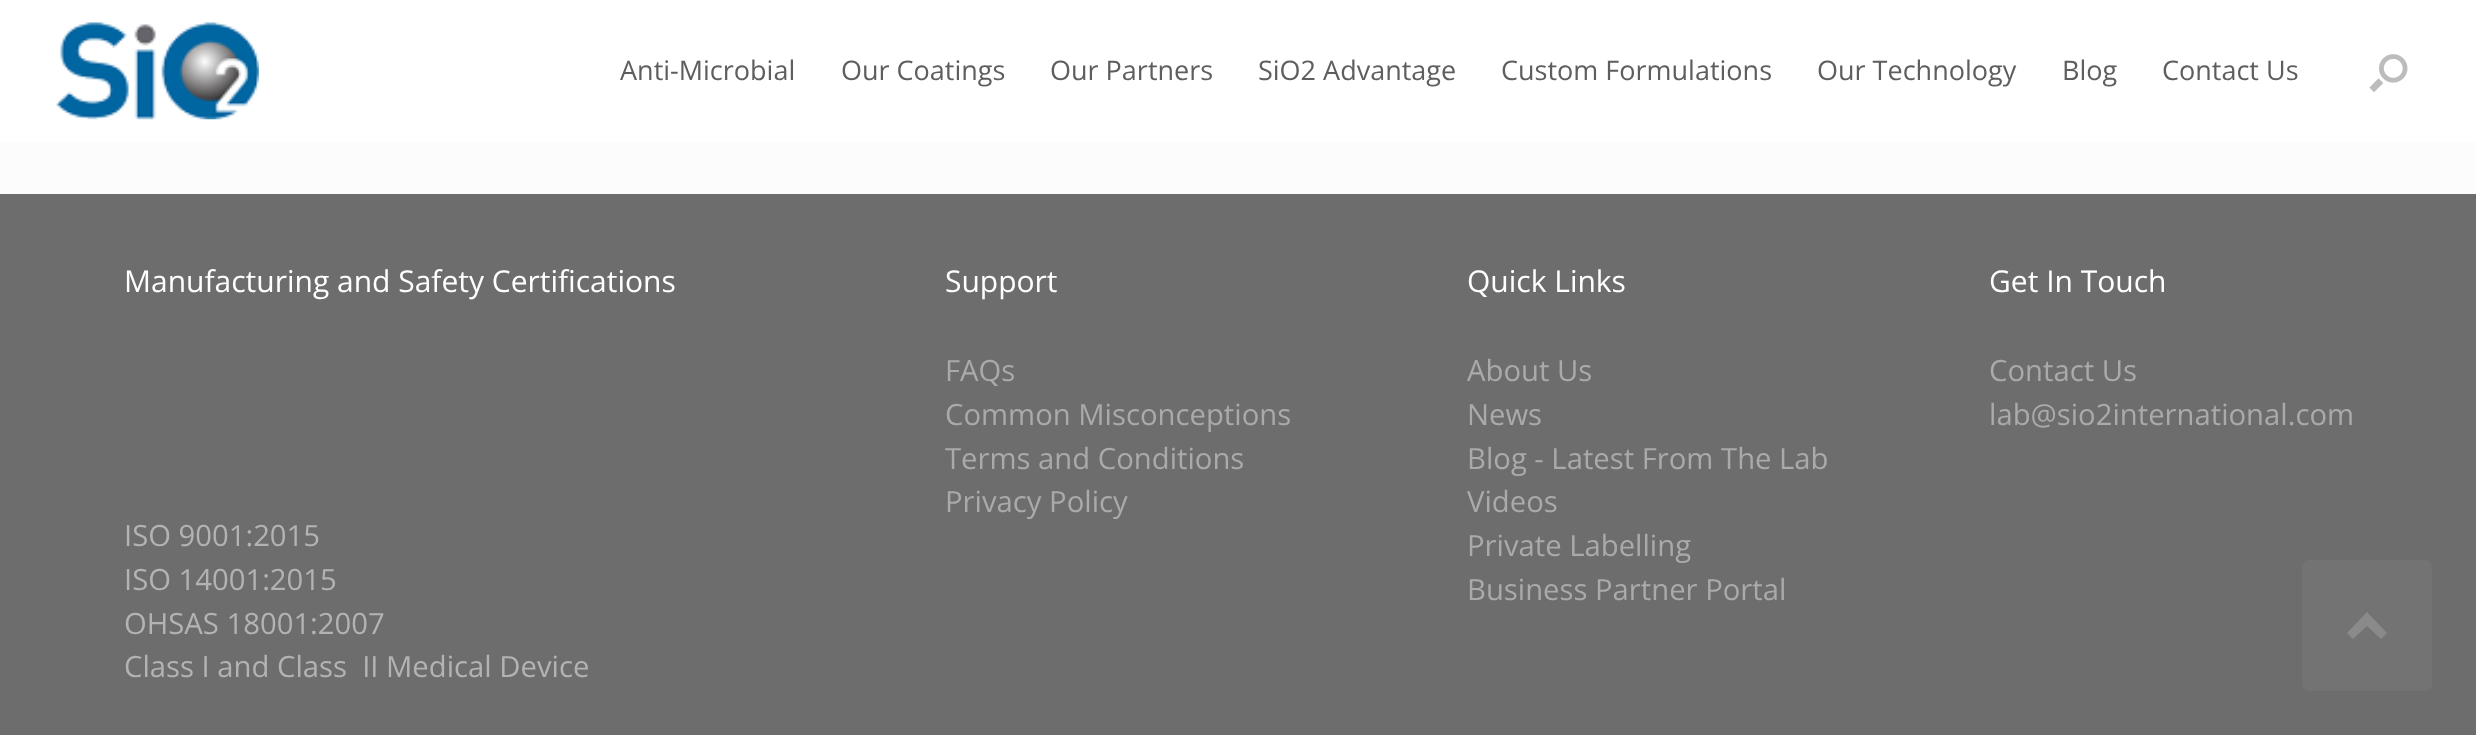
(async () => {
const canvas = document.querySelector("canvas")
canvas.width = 2476
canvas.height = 735
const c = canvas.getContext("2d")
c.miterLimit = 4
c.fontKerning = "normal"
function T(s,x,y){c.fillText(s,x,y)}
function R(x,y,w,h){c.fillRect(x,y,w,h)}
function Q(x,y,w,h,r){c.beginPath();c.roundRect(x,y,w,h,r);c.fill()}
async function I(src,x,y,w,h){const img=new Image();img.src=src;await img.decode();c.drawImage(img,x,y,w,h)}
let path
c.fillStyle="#6d6d6d"
R(0,0,2476,735)
c.fillStyle="#fff"
R(0,0,2476,142)
await I("1.png",55,22,204,98)
c.font="27px Open Sans"
c.fillStyle="#5e5e5e"
T("Anti-Microbial",620,80)
T("Our Coatings",841,80)
T("Our Partners",1050,80)
T("SiO2 Advantage",1258,80)
T("Custom Formulations",1501,80)
T("Our Technology",1817,80)
T("Blog",2062,80)
T("Contact Us",2162,80)
await I("2.png",2369,54,39,38)
c.fillStyle="#fcfcfc"
R(0,142,2476,52)
c.font="30px Open Sans"
c.fillStyle="#fff"
T("Manufacturing and Safety Certifications",124,292)
c.font="29.25px Open Sans"
c.fillStyle="#b3b3b3"
T("ISO 9001:2015",124,546)
T("ISO 14001:2015",124,590)
T("OHSAS 18001:2007",124,634)
T("Class I and Class  II Medical Device",124,677)
c.font="30px Open Sans"
c.fillStyle="#fff"
T("Support",945,292)
c.font="29.25px Open Sans"
c.fillStyle="#aaa"
T("FAQs",945,381)
T("Common Misconceptions",945,425)
T("Terms and Conditions",945,469)
T("Privacy Policy",945,512)
c.font="30px Open Sans"
c.fillStyle="#fff"
T("Quick Links",1467,292)
c.font="29.25px Open Sans"
c.fillStyle="#aaa"
T("About Us",1467,381)
T("News",1467,425)
T("Blog - Latest From The Lab",1467,469)
T("Videos",1467,512)
T("Private Labelling",1467,556)
T("Business Partner Portal",1467,600)
c.font="30px Open Sans"
c.fillStyle="#fff"
T("Get In Touch",1989,292)
c.font="29.25px Open Sans"
c.fillStyle="#aaa"
T("Contact Us",1989,381)
T("lab@sio2international.com",1989,425)
c.fillStyle="#737373"
Q(2302,560,130,131,7)
c.fillStyle="#8a8a8a"
path = new Path2D("M2387 633l-20-21l-20 21l6 6l14-13l14 13z")
c.fill(path)
})()
